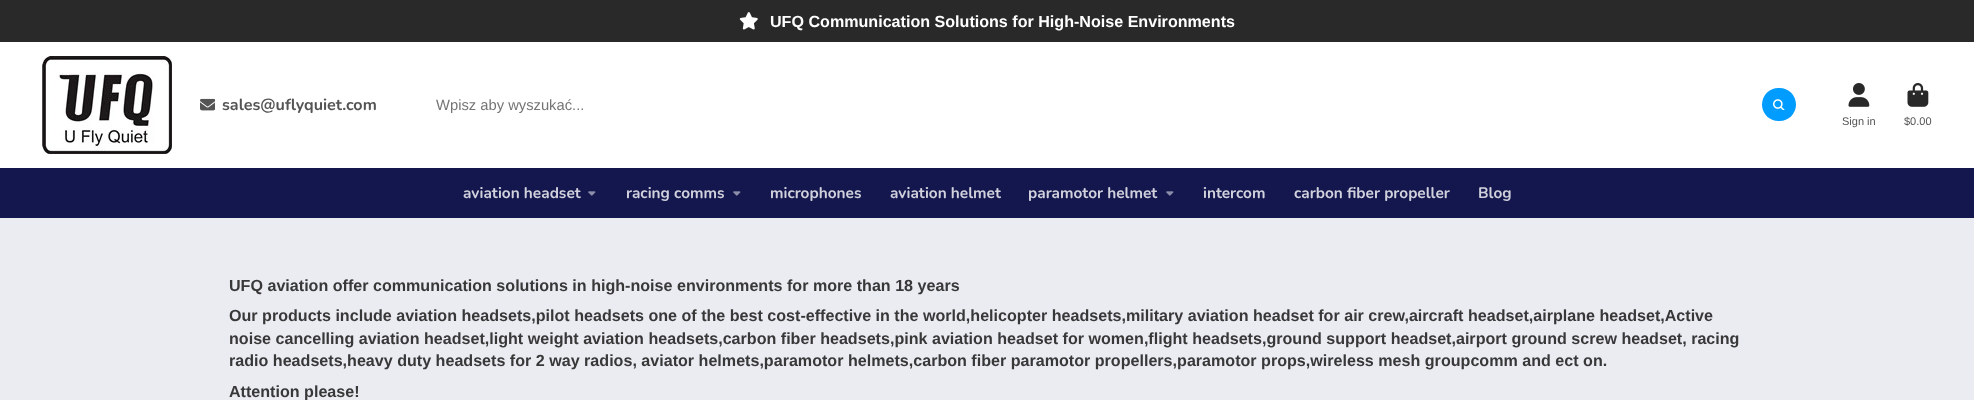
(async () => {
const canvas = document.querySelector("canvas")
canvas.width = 1974
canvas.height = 400
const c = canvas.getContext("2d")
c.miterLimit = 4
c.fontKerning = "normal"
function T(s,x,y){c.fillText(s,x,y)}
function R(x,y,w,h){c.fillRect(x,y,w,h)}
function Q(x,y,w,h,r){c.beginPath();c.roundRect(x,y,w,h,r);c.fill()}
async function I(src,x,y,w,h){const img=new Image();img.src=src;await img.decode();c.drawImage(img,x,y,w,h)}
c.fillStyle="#eaecf2"
R(0,0,1974,400)
c.fillStyle="#292929"
R(0,0,1974,42)
await I("1.png",739,12,19,18)
c.font="bold 16.1px Liberation Sans"
c.fillStyle="#fff"
T("UFQ Communication Solutions for High-Noise Environments",770,27)
R(0,42,1974,126)
await I("2.png",42,56,130,98)
await I("3.png",200,98,15,13)
c.font="bold 16.1px Nunito"
c.fillStyle="#545454"
T("sales@uflyquiet.com",222,110)
c.font="14.75px Liberation Sans"
c.fillStyle="#757575"
T("Wpisz aby wyszukać...",436,110)
c.fillStyle="#009cff"
Q(1762,88,34,33,16.5)
await I("4.png",1773,99,12,11)
await I("5.png",1848,83,22,24)
c.font="11px Liberation Sans"
c.fillStyle="#545454"
T("Sign in",1842,125)
await I("6.png",1907,83,22,24)
T("$0.00",1904,125)
c.fillStyle="#14174e"
R(0,168,1974,50)
c.font="bold 15.4px Nunito"
c.fillStyle="#d0d1dc"
T("aviation headset",463,198)
await I("7.png",588,191,8,5)
T("racing comms",626,198)
await I("7.png",733,191,8,5)
T("microphones",770,198)
T("aviation helmet",890,198)
T("paramotor helmet",1028,198)
await I("7.png",1166,191,8,5)
T("intercom",1203,198)
T("carbon fiber propeller",1294,198)
T("Blog",1478,198)
c.font="bold 16.1px Liberation Sans"
c.fillStyle="#383839"
T("UFQ aviation offer communication solutions in high-noise environments for more than 18 years",229,291)
T("Our products include aviation headsets,pilot headsets one of the best cost-effective in the world,helicopter headsets,military aviation headset for air crew,aircraft headset,airplane headset,Active",229,321)
T("noise cancelling aviation headset,light weight aviation headsets,carbon fiber headsets,pink aviation headset for women,flight headsets,ground support headset,airport ground screw headset, racing",229,344)
T("radio headsets,heavy duty headsets for 2 way radios, aviator helmets,paramotor helmets,carbon fiber paramotor propellers,paramotor props,wireless mesh groupcomm and ect on.",229,366)
T("Attention please!",229,397)
})()
